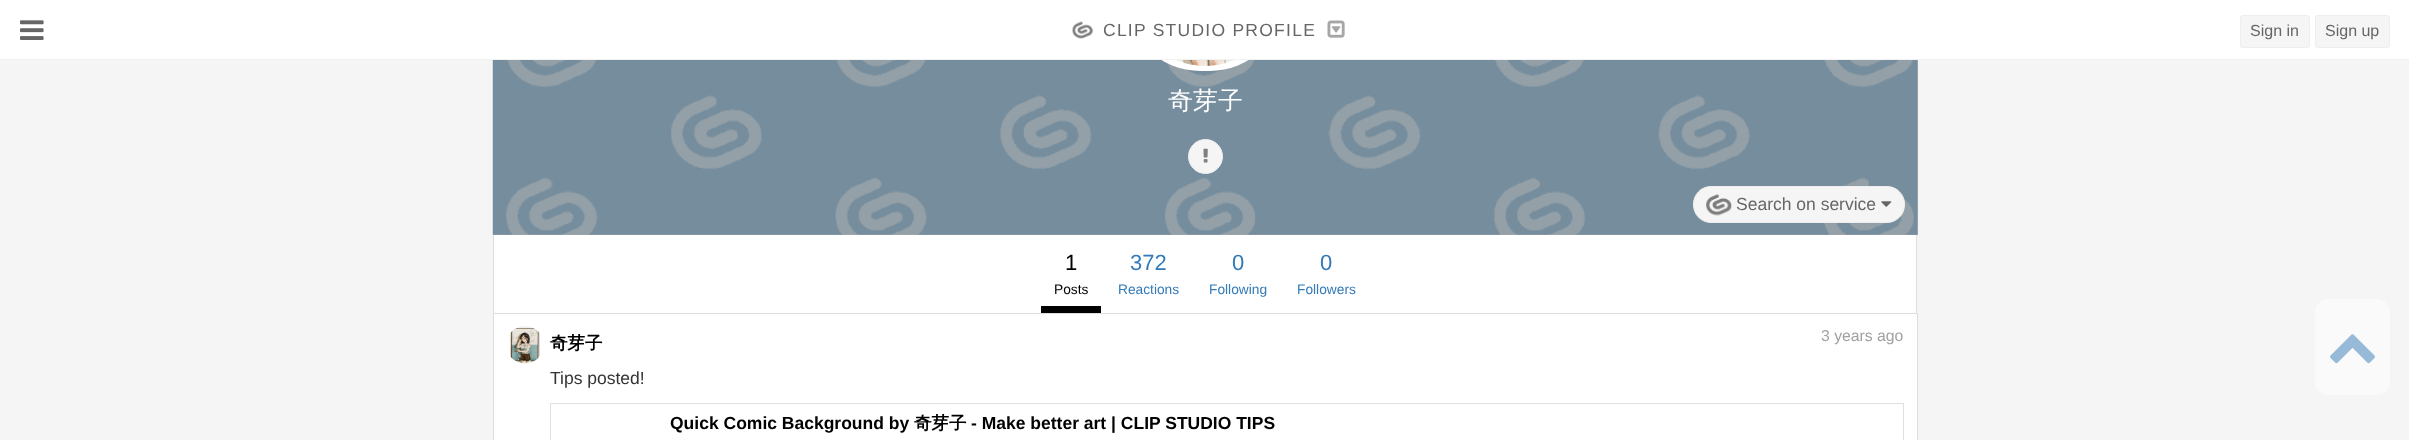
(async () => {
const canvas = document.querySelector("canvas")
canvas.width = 2409
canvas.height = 440
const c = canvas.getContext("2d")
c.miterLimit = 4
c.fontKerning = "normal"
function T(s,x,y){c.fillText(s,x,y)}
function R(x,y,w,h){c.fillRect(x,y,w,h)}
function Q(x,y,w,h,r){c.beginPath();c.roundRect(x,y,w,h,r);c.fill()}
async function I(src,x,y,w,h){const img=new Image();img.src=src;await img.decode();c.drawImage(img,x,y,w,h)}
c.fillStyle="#f5f5f5"
R(0,0,2409,440)
c.fillStyle="#b3b3b3"
R(493,60,1425,175)
await I("4.png",492,60,1426,175)
c.fillStyle="#fff"
Q(1125,-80,160,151,80)
R(0,0,2409,59)
c.fillStyle="#f2f2f2"
R(0,59,2409,1)
await I("1.png",20,20,24,20)
await I("2.png",1072,21,21,18)
c.letterSpacing="1.25px"
c.font="17.5px Liberation Sans"
c.fillStyle="#666"
T("CLIP STUDIO PROFILE",1103,36)
await I("3.png",1327,20,18,18)
c.fillStyle="#f5f5f5"
c.beginPath()
c.roundRect(2240.5,15.5,69,32,2)
c.fill()
c.strokeStyle="#eee"
c.stroke()
c.letterSpacing="0px"
c.font="16px Liberation Sans"
c.fillStyle="#666"
T("Sign in",2250,36)
c.fillStyle="#f5f5f5"
c.beginPath()
c.roundRect(2315.5,15.5,74,32,2)
c.fill()
c.stroke()
c.fillStyle="#666"
T("Sign up",2325,36)
await I("5.png",1176,60,58,6)
c.font="500 25px WenQuanYi Zen Hei"
c.fillStyle="#fff"
T("奇芽子",1168,109)
c.fillStyle="#f5f5f5"
c.beginPath()
c.arc(1205.5,156.5,17,0,7)
c.fill()
c.stroke()
await I("6.png",1203,148,5,15)
c.beginPath()
c.roundRect(1693.5,186.5,211,36,17.5)
c.fill()
c.stroke()
await I("7.png",1706,194,26,22)
c.font="17.5px Liberation Sans"
c.fillStyle="#666"
T("Search on service",1736,210)
await I("8.png",1881,201,11,6)
c.fillStyle="#fff"
R(494,235,1422,78)
c.fillStyle="#ddd"
R(1916,235,1,78)
R(493,235,1,78)
c.fillStyle="#000"
R(1041,306,60,7)
c.font="22px Liberation Sans"
T("1",1065,270)
c.font="13.75px Liberation Sans"
T("Posts",1054,294)
c.font="22px Liberation Sans"
c.fillStyle="#337ab7"
T("372",1130,270)
c.font="13.75px Liberation Sans"
T("Reactions",1118,294)
c.font="22px Liberation Sans"
T("0",1232,270)
c.font="13.75px Liberation Sans"
T("Following",1209,294)
c.font="22px Liberation Sans"
T("0",1320,270)
c.font="13.75px Liberation Sans"
T("Followers",1297,294)
c.fillStyle="#fff"
c.beginPath()
c.rect(493.5,313.5,1424,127)
c.fill()
c.strokeStyle="#ddd"
c.stroke()
await I("9.png",510,326,30,38)
c.font="bold 17.5px WenQuanYi Zen Hei"
c.fillStyle="#000"
T("奇芽子",550,349)
c.font="17.5px Liberation Sans"
c.fillStyle="#333"
T("Tips posted!",550,384)
c.font="15.75px Liberation Sans"
c.fillStyle="#a1a1a1"
T("3 years ago",1821,341)
c.strokeStyle="#e0e0e0"
c.strokeRect(550.5,403.5,1353,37)
c.font="bold 17.5px Liberation Sans"
c.fillStyle="#000"
T("Quick Comic Background by",670,429)
c.font="bold 17.5px WenQuanYi Zen Hei"
T("奇芽子",914,429)
c.font="bold 17.5px Liberation Sans"
T("- Make better art | CLIP STUDIO TIPS",971,429)
c.fillStyle="#fafafa"
Q(2315,299,75,96,13)
await I("10.png",2330,334,45,30)
})()
